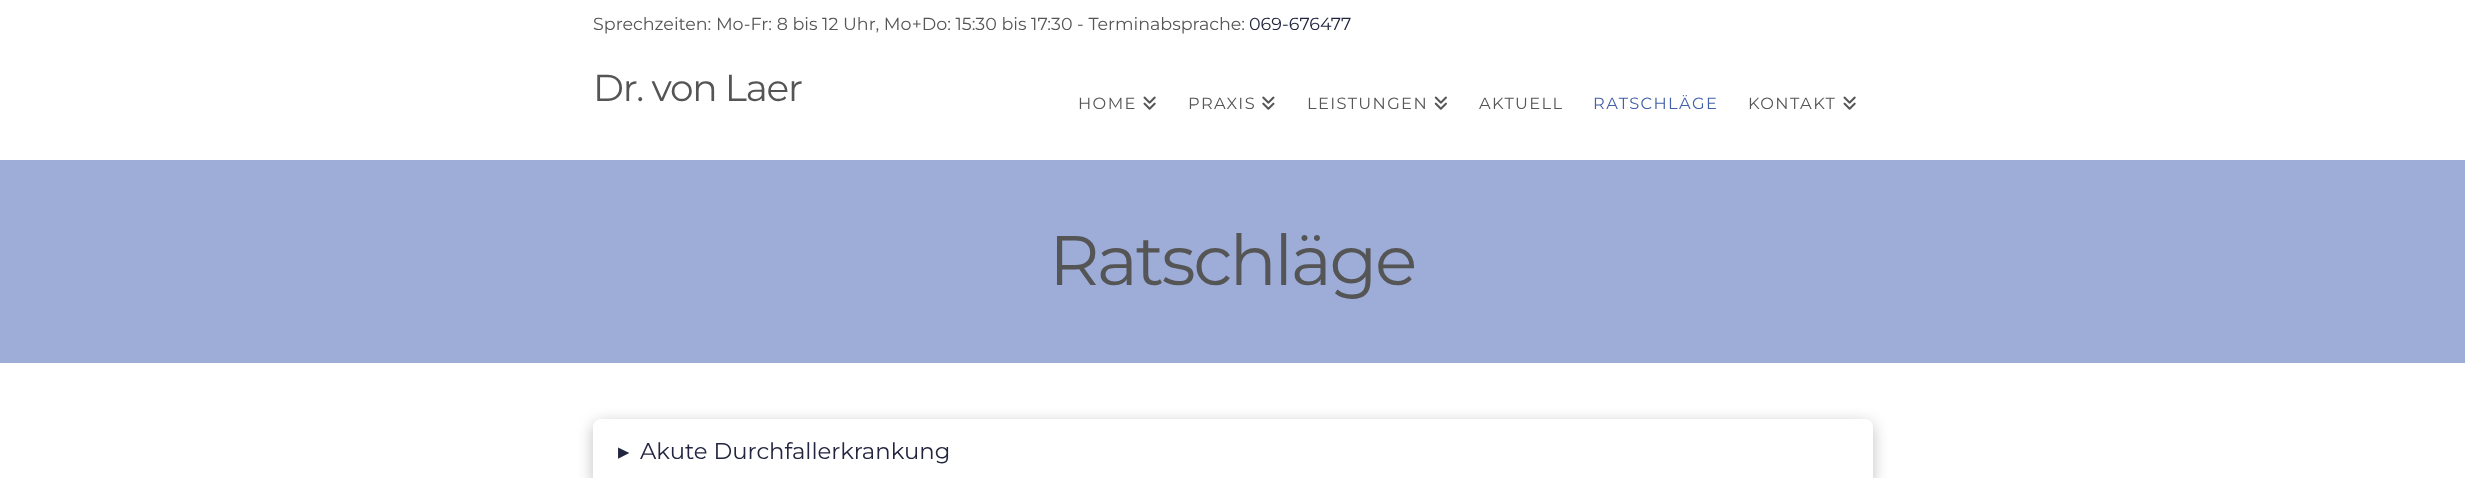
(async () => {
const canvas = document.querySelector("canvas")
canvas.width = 2465
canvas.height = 478
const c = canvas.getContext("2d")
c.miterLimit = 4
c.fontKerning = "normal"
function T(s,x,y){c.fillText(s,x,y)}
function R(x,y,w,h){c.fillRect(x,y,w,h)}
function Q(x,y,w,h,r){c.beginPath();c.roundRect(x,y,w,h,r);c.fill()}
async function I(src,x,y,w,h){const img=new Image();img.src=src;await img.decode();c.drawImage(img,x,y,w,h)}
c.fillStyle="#fff"
R(0,0,2465,478)
c.font="17.5px Montserrat"
c.fillStyle="#555"
T("Sprechzeiten: Mo-Fr: 8 bis 12 Uhr, Mo+Do: 15:30 bis 17:30 - Terminabsprache:",593,30)
c.fillStyle="#22253f"
T("069-676477",1249,30)
c.letterSpacing="-1.25px"
c.font="37.5px Montserrat"
c.fillStyle="#555"
T("Dr. von Laer",593,101)
c.letterSpacing="1.4px"
c.font="16.25px Montserrat"
T("HOME",1078,109)
await I("1.png",1143,96,13,14)
T("PRAXIS",1188,109)
await I("2.png",1262,96,13,14)
T("LEISTUNGEN",1307,109)
await I("3.png",1434,96,13,14)
T("AKTUELL",1479,109)
c.fillStyle="#435fa9"
T("RATSCHLÄGE",1593,109)
c.fillStyle="#555"
T("KONTAKT",1748,109)
await I("1.png",1843,96,13,14)
c.fillStyle="#9dadd8"
R(0,160,2465,203)
c.letterSpacing="-2.5px"
c.font="70px Montserrat"
c.fillStyle="#555"
T("Ratschläge",1049,285)
c.fillStyle="#00000040"
c.filter="blur(7.5px)"
c.beginPath()
c.roundRect(593,423,1280,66,8)
c.fill()
c.filter="none"
c.fillStyle="#fff"
Q(593,419,1280,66,8)
c.letterSpacing="0px"
c.font="22.75px DejaVu Sans"
c.fillStyle="#22253f"
T("▸",618,459)
c.font="22.75px Montserrat"
T("Akute Durchfallerkrankung",640,459)
})()
